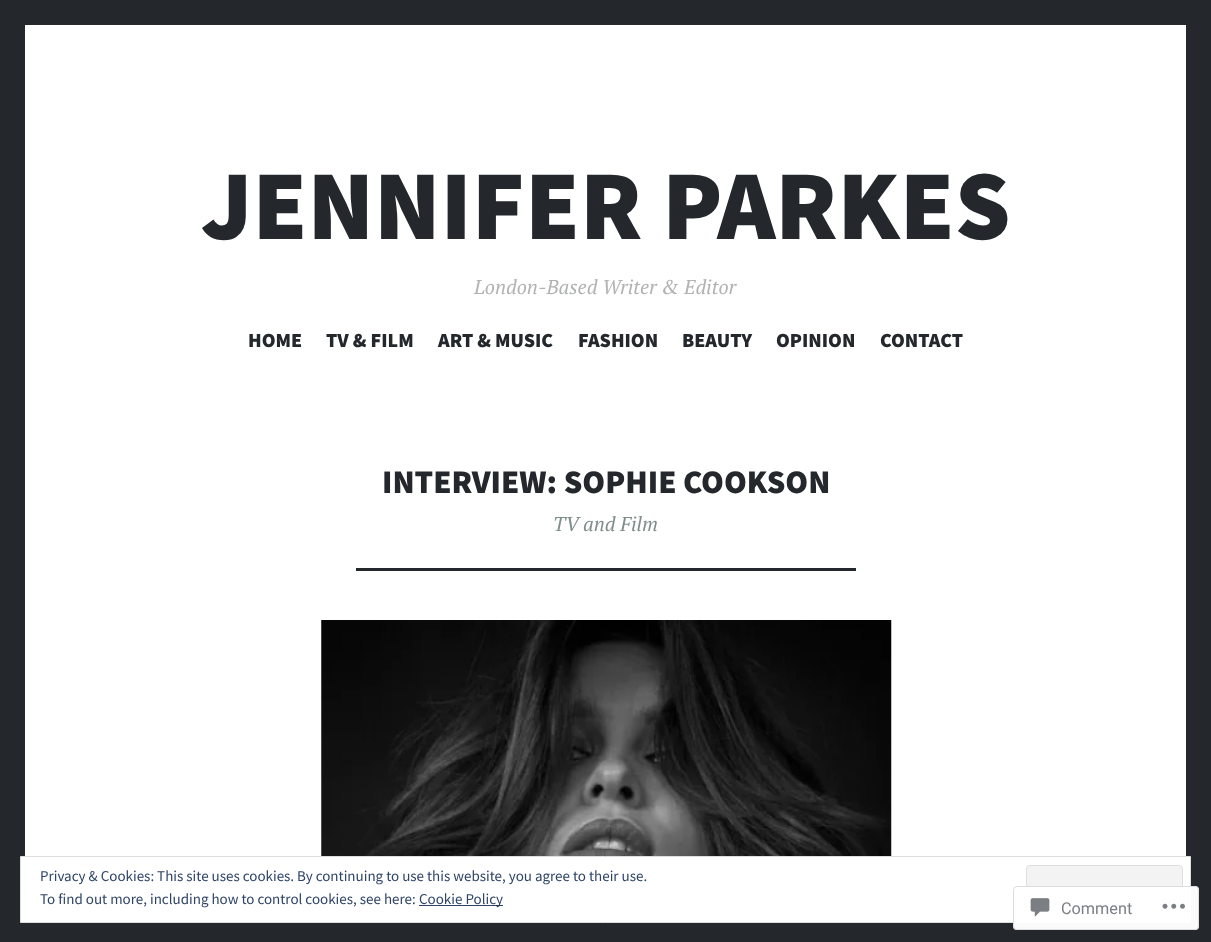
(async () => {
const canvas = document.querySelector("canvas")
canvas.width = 1211
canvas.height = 942
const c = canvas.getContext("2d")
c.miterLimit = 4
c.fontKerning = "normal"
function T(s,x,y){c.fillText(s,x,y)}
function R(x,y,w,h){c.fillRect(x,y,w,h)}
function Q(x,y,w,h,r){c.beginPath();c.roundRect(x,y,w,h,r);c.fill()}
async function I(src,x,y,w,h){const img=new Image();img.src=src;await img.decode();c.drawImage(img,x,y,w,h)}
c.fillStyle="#24282d"
R(0,0,1211,942)
c.fillStyle="#fff"
R(25,25,1161,831)
c.font="900 99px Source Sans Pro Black"
c.fillStyle="#24282d"
T("JENNIFER PARKES",201,239)
c.font="italic 20px PT Serif"
c.fillStyle="#b1b2b3"
T("London-Based Writer & Editor",474,294)
c.font="900 20px Source Sans Pro Black"
c.fillStyle="#24282d"
T("HOME",248,347)
T("TV & FILM",326,347)
T("ART & MUSIC",438,347)
T("FASHION",578,347)
T("BEAUTY",682,347)
T("OPINION",776,347)
T("CONTACT",880,347)
c.font="900 33px Source Sans Pro Black"
T("INTERVIEW: SOPHIE COOKSON",382,493)
c.font="italic 20px PT Serif"
c.fillStyle="#7f8d8c"
T("TV and Film",553,531)
c.fillStyle="#24282d"
R(356,568,500,3)
await I("1.png",321,620,571,236)
c.fillStyle="#fff"
c.beginPath()
c.rect(20.5,856.5,1170,66)
c.fill()
c.strokeStyle="#dedede"
c.stroke()
c.font="15px Source Sans Pro"
c.fillStyle="#2e4467"
T("Privacy & Cookies: This site uses cookies. By continuing to use this website, you agree to their use.",40,881)
c.fillStyle="#f3f3f3"
c.beginPath()
c.roundRect(1026.5,865.5,156,48,3.5)
c.fill()
c.stroke()
c.fillStyle="#2e4467"
T("To find out more, including how to control cookies, see here:",40,904)
R(419,905,84,1)
T("Cookie Policy",419,904)
c.fillStyle="#fffffffa"
Q(1013,886,186,44,4)
c.beginPath()
c.roundRect(1013.5,886.5,185,43,3.5)
c.strokeStyle="#dcdcdefa"
c.stroke()
await I("2.png",1030,898,20,19)
c.font="16.25px Roboto"
c.fillStyle="#7b7f84"
T("Comment",1061,914)
await I("3.png",1162,903,23,6)
})()
